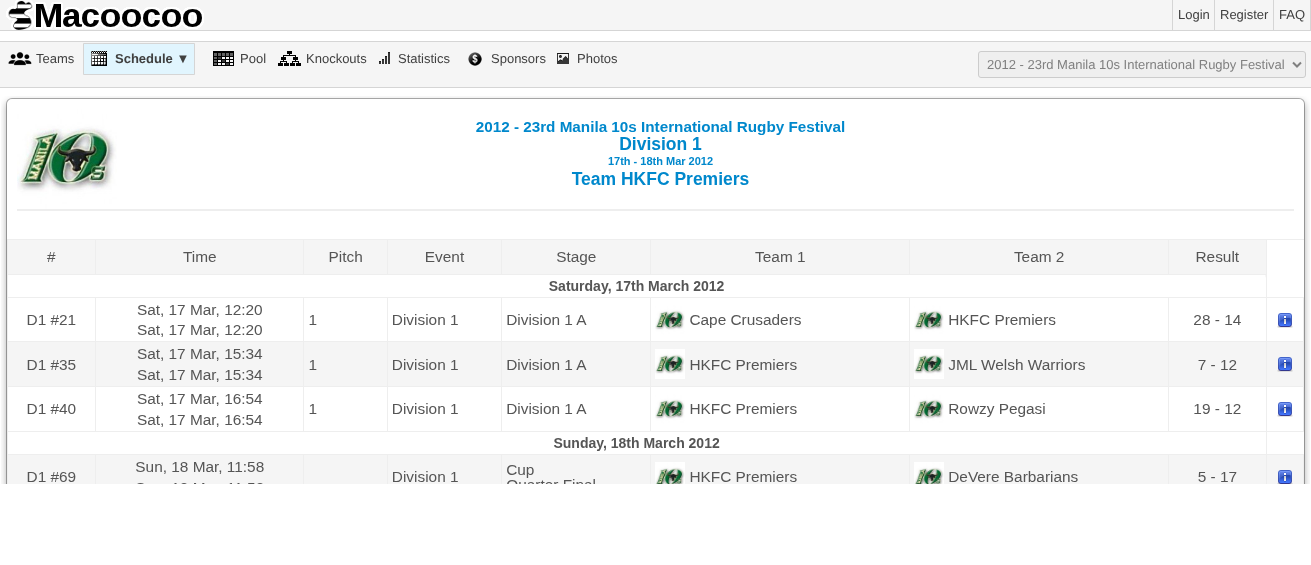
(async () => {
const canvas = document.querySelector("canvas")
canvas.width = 1311
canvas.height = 565
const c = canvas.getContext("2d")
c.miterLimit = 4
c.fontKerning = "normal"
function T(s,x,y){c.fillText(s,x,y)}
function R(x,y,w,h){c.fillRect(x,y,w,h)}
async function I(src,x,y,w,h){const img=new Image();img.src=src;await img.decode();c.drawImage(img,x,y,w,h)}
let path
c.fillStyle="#fff"
R(0,0,1311,565)
c.fillStyle="#f5f5f5"
R(0,0,1310,30)
c.fillStyle="#d5d5d5"
R(0,30,1311,1)
await I("1.png",6,0,198,30)
R(1214,0,1,30)
R(1172,0,1,30)
c.font="13px Liberation Sans"
c.fillStyle="#404040"
T("Login",1178,19)
c.fillStyle="#d5d5d5"
R(1273,0,1,30)
c.fillStyle="#404040"
T("Register",1220,19)
c.fillStyle="#d5d5d5"
R(1310,0,1,30)
c.fillStyle="#404040"
T("FAQ",1279,19)
c.fillStyle="#f5f5f5"
R(0,42,1311,45)
c.fillStyle="#d5d5d5"
R(0,41,1311,1)
R(0,87,1311,1)
await I("2.png",8,52,24,14)
c.fillStyle="#404040"
T("Teams",36,63)
c.fillStyle="#e1f5fe"
c.beginPath()
c.rect(83.5,43.5,111,31)
c.fill()
c.strokeStyle="#d5d5d5"
c.stroke()
await I("3.png",91,51,16,15)
c.font="bold 13px Liberation Sans"
c.fillStyle="#404040"
T("Schedule ▼",115,63)
await I("4.png",213,51,21,15)
c.font="13px Liberation Sans"
T("Pool",240,63)
await I("5.png",278,51,23,15)
T("Knockouts",306,63)
await I("6.png",379,52,11,12)
T("Statistics",398,63)
await I("7.png",468,52,14,14)
T("Sponsors",491,63)
await I("8.png",557,53,12,11)
T("Photos",577,63)
c.fillStyle="#efefef"
c.beginPath()
c.roundRect(978.5,51.5,327,26,2.5)
c.fill()
c.strokeStyle="#ccc"
c.stroke()
path = new Path2D("M1293 62.5l4 4l4-4")
c.strokeStyle="#808080"
c.lineWidth=2
c.stroke(path)
c.fillStyle="#808080"
T("2012 - 23rd Manila 10s International Rugby Festival",987,69)
await I("9.png",1,96,1309,388)
})()
